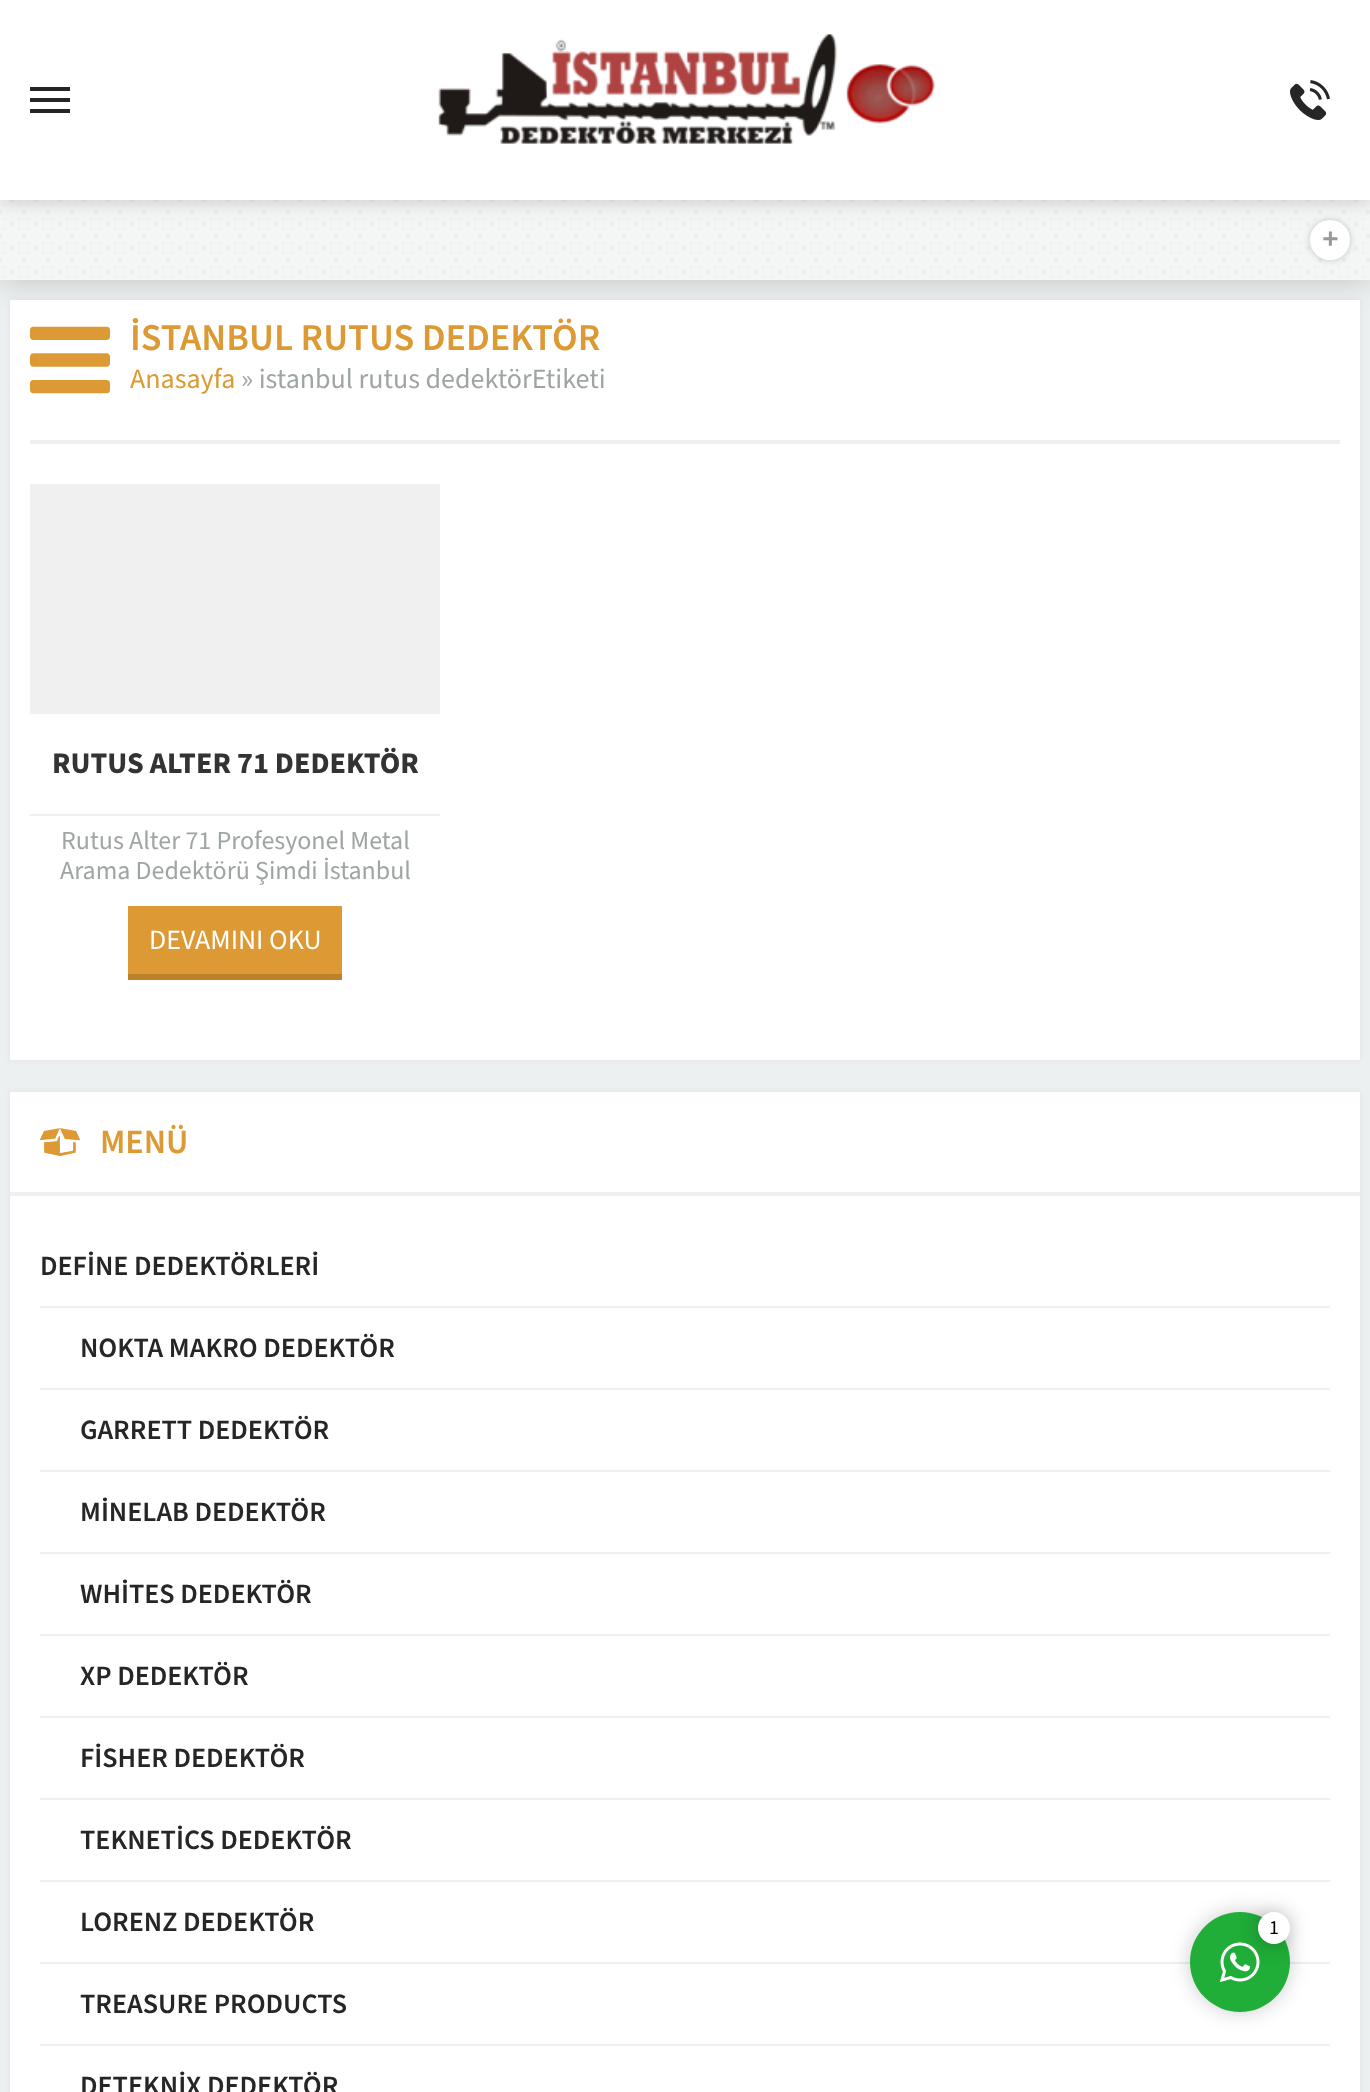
(async () => {
const canvas = document.querySelector("canvas")
canvas.width = 1370
canvas.height = 2092
const c = canvas.getContext("2d")
c.miterLimit = 4
c.fontKerning = "normal"
function T(s,x,y){c.fillText(s,x,y)}
function R(x,y,w,h){c.fillRect(x,y,w,h)}
async function I(src,x,y,w,h){const img=new Image();img.src=src;await img.decode();c.drawImage(img,x,y,w,h)}
let path
c.fillStyle="#ecf0f1"
R(0,0,1370,2092)
c.fillStyle="#00000033"
c.filter="blur(15px)"
c.beginPath()
c.rect(0,200,1370,80)
c.fill()
c.filter="none"
c.fillStyle="#f4f6f6"
R(0,200,1370,80)
await I("3.png",0,200,1370,78)
c.fillStyle="#00000033"
c.filter="blur(3px)"
c.beginPath()
c.roundRect(1310,220,40,40,20)
c.fill()
c.filter="none"
c.fillStyle="#fff"
c.beginPath()
c.arc(1330,240,20,0,7)
c.fill()
c.fillStyle="#00000033"
c.filter="blur(10px)"
c.beginPath()
c.rect(0,0,1370,200)
c.fill()
c.filter="none"
c.fillStyle="#fff"
R(0,0,1370,200)
c.fillStyle="#252525"
path = new Path2D("M30 113h40v-4h-40zm0-11h40v-4h-40zm0-15v4h40v-4z")
c.fill(path)
await I("1.png",438,34,498,110)
await I("2.png",1290,80,40,40)
c.font="bold 28px Liberation Mono"
c.fillStyle="#999"
T("+",1322,248)
c.fillStyle="#0000000f"
c.filter="blur(3px)"
c.beginPath()
c.rect(10,300,1350,760)
c.fill()
c.filter="none"
c.fillStyle="#fff"
R(10,300,1350,760)
c.fillStyle="#ecf0f1"
R(30,440,1310,4)
await I("4.png",30,326,80,68)
c.font="600 38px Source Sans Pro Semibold"
c.fillStyle="#d93"
T("İSTANBUL RUTUS DEDEKTÖR",130,350)
c.font="28px Source Sans Pro"
T("Anasayfa",130,388)
c.fillStyle="#9fa4a4"
T("» istanbul rutus dedektörEtiketi",241,388)
c.fillStyle="#f0f0f0"
R(30,484,410,230)
c.font="bold 30px Source Sans Pro"
c.fillStyle="#333"
T("RUTUS ALTER 71 DEDEKTÖR",52,773)
c.fillStyle="#ecf0f1"
R(30,814,410,2)
c.font="26px Source Sans Pro"
c.fillStyle="#9fa4a4"
T("Rutus Alter 71 Profesyonel Metal",61,849)
T("Arama Dedektörü Şimdi İstanbul",60,879)
c.fillStyle="#d93"
R(128,906,214,68)
c.fillStyle="#bc822b"
R(128,974,214,6)
c.font="28px Source Sans Pro"
c.fillStyle="#fff"
T("DEVAMINI OKU",149,949)
c.fillStyle="#0000000f"
c.filter="blur(3px)"
c.beginPath()
c.rect(10,1092,1350,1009)
c.fill()
c.filter="none"
c.fillStyle="#fff"
R(10,1092,1350,1000)
c.fillStyle="#ecf0f1"
R(10,1192,1350,4)
await I("5.png",40,1128,40,28)
c.font="600 34px Source Sans Pro Semibold"
c.fillStyle="#d93"
T("MENÜ",100,1153)
c.font="600 28px Source Sans Pro Semibold"
c.fillStyle="#262626"
T("DEFİNE DEDEKTÖRLERİ",40,1275)
c.fillStyle="#ecf0f1"
R(40,1306,1290,2)
c.fillStyle="#262626"
T("NOKTA MAKRO DEDEKTÖR",80,1357)
c.fillStyle="#ecf0f1"
R(40,1388,1290,2)
c.fillStyle="#262626"
T("GARRETT DEDEKTÖR",80,1439)
c.fillStyle="#ecf0f1"
R(40,1470,1290,2)
c.fillStyle="#262626"
T("MİNELAB DEDEKTÖR",80,1521)
c.fillStyle="#ecf0f1"
R(40,1552,1290,2)
c.fillStyle="#262626"
T("WHİTES DEDEKTÖR",80,1603)
c.fillStyle="#ecf0f1"
R(40,1634,1290,2)
c.fillStyle="#262626"
T("XP DEDEKTÖR",80,1685)
c.fillStyle="#ecf0f1"
R(40,1716,1290,2)
c.fillStyle="#262626"
T("FİSHER DEDEKTÖR",80,1767)
c.fillStyle="#ecf0f1"
R(40,1798,1290,2)
c.fillStyle="#262626"
T("TEKNETİCS DEDEKTÖR",80,1849)
c.fillStyle="#ecf0f1"
R(40,1880,1290,2)
c.fillStyle="#262626"
T("LORENZ DEDEKTÖR",80,1931)
c.fillStyle="#ecf0f1"
R(40,1962,1290,2)
c.fillStyle="#262626"
T("TREASURE PRODUCTS",80,2013)
c.fillStyle="#ecf0f1"
R(40,2044,1290,2)
c.fillStyle="#262626"
T("DETEKNİX DEDEKTÖR",80,2095)
c.fillStyle="#00000033"
c.filter="blur(10px)"
c.beginPath()
c.roundRect(1190,1912,100,100,50)
c.fill()
c.filter="none"
c.fillStyle="#20ad38"
c.beginPath()
c.arc(1240,1962,50,0,7)
c.fill()
await I("6.png",1219,1942,41,41)
c.fillStyle="#00000047"
c.filter="blur(10px)"
c.beginPath()
c.roundRect(1258,1912,32,32,16)
c.fill()
c.filter="none"
c.fillStyle="#fff"
c.beginPath()
c.arc(1274,1928,16,0,7)
c.fill()
c.font="20px Source Sans Pro"
c.fillStyle="#000"
T("1",1269,1934)
})()
